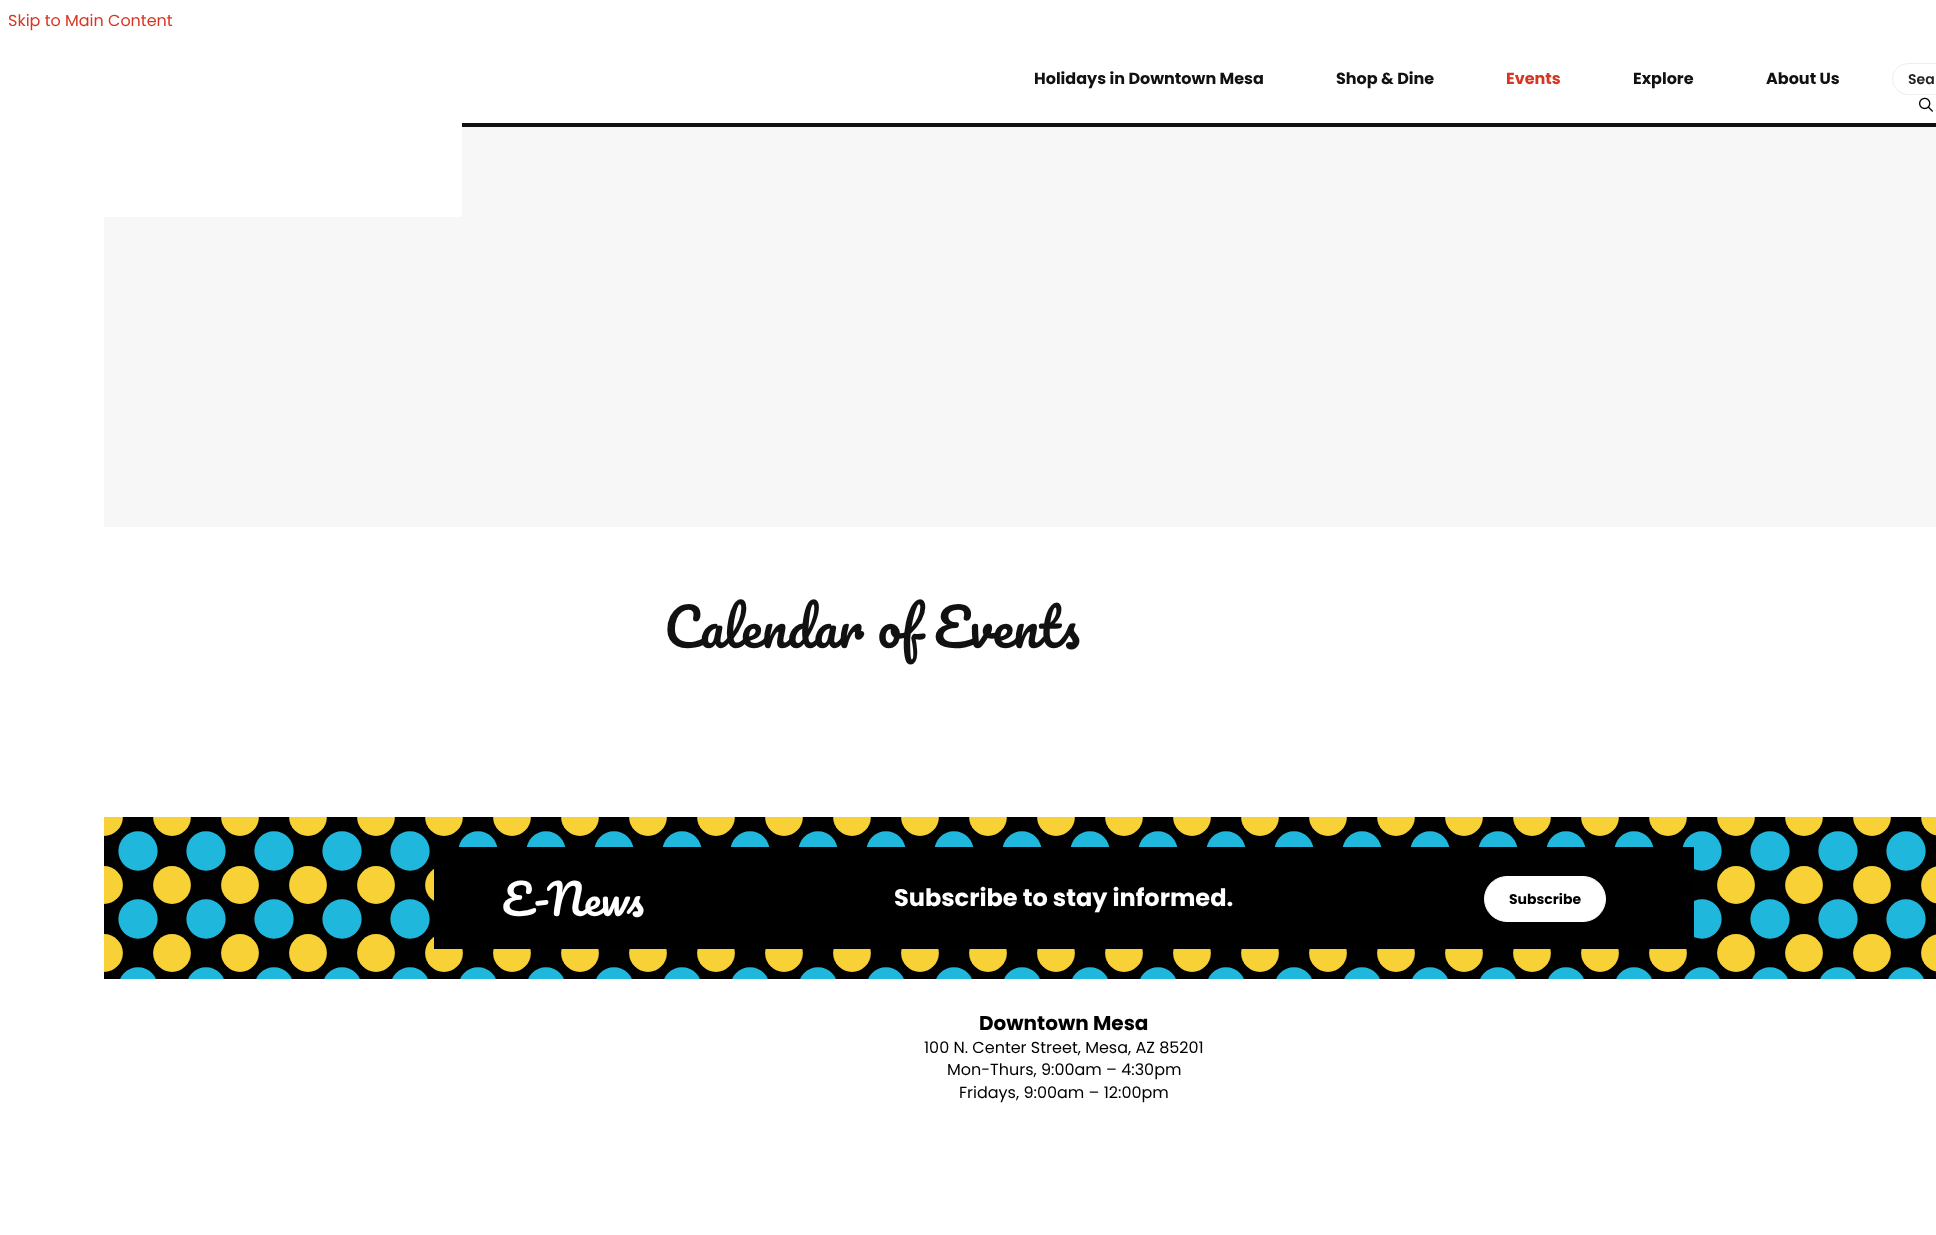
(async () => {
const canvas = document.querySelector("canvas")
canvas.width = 1936
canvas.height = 1235
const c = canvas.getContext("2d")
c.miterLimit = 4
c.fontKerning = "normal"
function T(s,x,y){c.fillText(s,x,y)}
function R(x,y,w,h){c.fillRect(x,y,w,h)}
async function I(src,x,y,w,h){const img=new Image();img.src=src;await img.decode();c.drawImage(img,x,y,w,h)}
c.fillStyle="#fff"
R(0,0,1936,1235)
c.font="16px Poppins"
c.fillStyle="#d83622"
T("Skip to Main Content",8,26)
c.fillStyle="#111"
R(462,123,1474,4)
c.font="bold 16px Poppins"
T("Holidays in Downtown Mesa",1034,84)
T("Shop & Dine",1336,84)
c.fillStyle="#d83622"
T("Events",1506,84)
c.fillStyle="#111"
T("Explore",1633,84)
T("About Us",1766,84)
c.beginPath()
c.roundRect(1892.5,63.5,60,31,15.5)
c.strokeStyle="#eee"
c.stroke()
c.font="600 14px Poppins"
c.fillStyle="#222"
T("Sea",1908,84)
await I("1.png",1919,97,14,15)
c.fillStyle="#f7f7f7"
R(104,127,1832,400)
c.fillStyle="#fff"
R(104,127,358,90)
c.font="52px Pacifico"
c.fillStyle="#111"
T("Calendar of Events",664,648)
c.fillStyle="#010101"
R(104,817,1832,162)
await I("2.png",104,817,1832,162)
c.fillStyle="#000"
R(434,847,1260,102)
c.font="42px Pacifico"
c.fillStyle="#fff"
T("E-News",502,916)
c.font="bold 24px Poppins"
T("Subscribe to stay informed.",894,906)
c.beginPath()
c.roundRect(1484.5,876.5,121,45,22.5)
c.fill()
c.strokeStyle="#fff"
c.stroke()
c.font="bold 14px Poppins"
c.fillStyle="#000"
T("Subscribe",1509,904)
c.font="bold 20px Poppins"
T("Downtown Mesa",979,1030)
c.font="16px Poppins"
T("100 N. Center Street, Mesa, AZ 85201",924,1053)
T("Mon-Thurs, 9:00am – 4:30pm",947,1075)
T("Fridays, 9:00am – 12:00pm",959,1098)
})()
